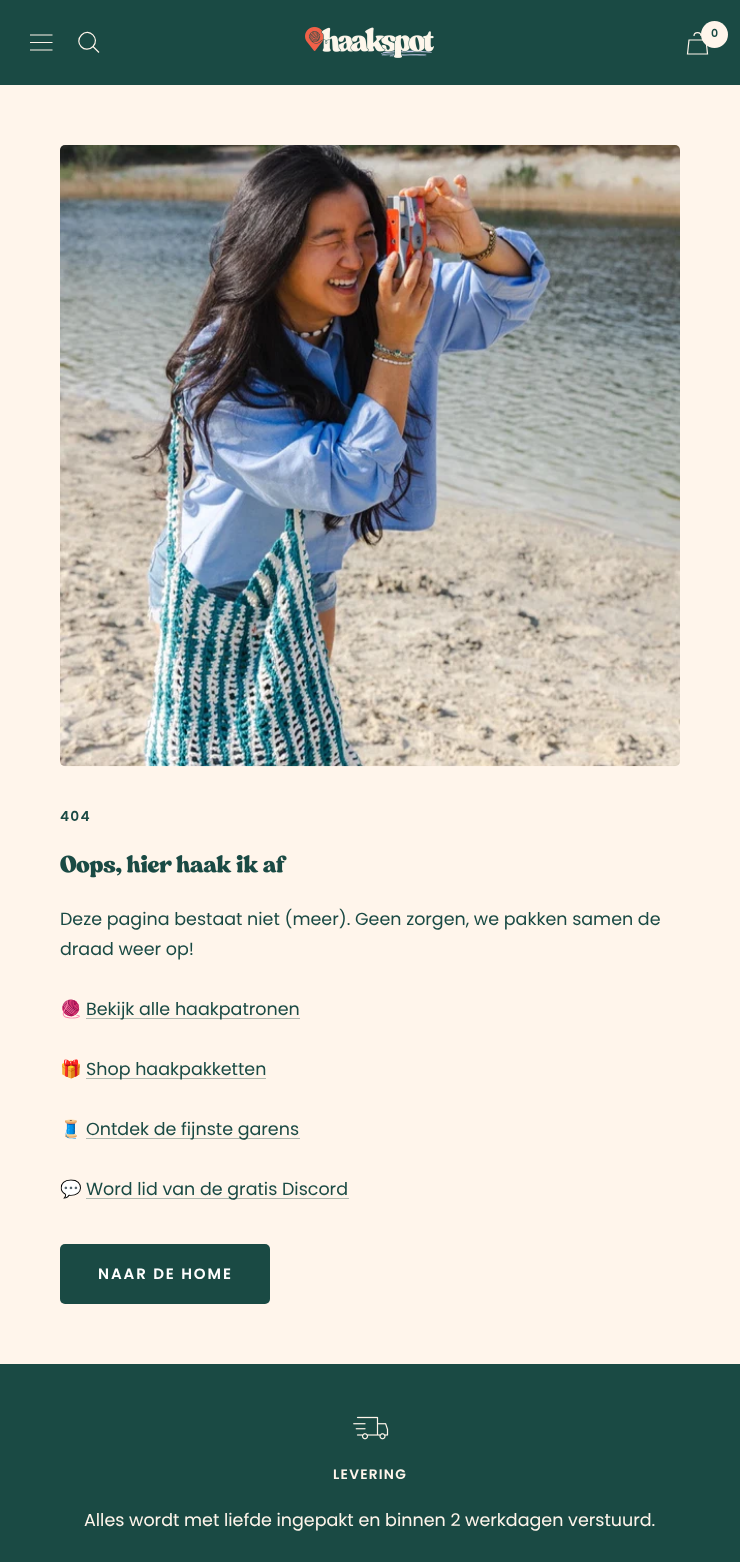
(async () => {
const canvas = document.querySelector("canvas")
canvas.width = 740
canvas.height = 1562
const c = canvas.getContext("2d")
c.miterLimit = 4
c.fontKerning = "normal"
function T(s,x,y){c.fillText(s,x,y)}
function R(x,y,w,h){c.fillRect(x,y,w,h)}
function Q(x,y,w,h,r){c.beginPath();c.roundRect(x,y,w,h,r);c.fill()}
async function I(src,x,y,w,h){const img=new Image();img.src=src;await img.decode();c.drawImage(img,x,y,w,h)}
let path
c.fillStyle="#fff5eb"
R(0,0,740,1562)
c.fillStyle="#1a4a44"
R(0,0,740,85)
path = new Path2D("M30 35h22.5m-22.5 15h22.5zm0-7.5h22.5z")
c.strokeStyle="#fff5eb"
c.lineWidth=1.2
c.stroke(path)
path = new Path2D("M93 46.5c7.5-7.5-4-19.5-11.5-11.5c-8 8 3.5 19.5 11.5 11.5zm0 0l6 6")
c.stroke(path)
await I("1.png",305,26,129,32)
path = new Path2D("M689 40h17l1.5 14h-20zm12-4c0-4.5-7-4.5-7 0")
c.stroke(path)
c.fillStyle="#fff5eb"
c.beginPath()
c.arc(714.5,34.5,13.5,0,7)
c.fill()
c.font="600 11px Poppins"
c.fillStyle="#1a4a44"
T("0",711,37)
await I("2.png",60,145,620,622)
c.letterSpacing="1.25px"
c.font="600 13.75px Poppins"
T("404",60,821)
await I("3.png",60,855,227,23)
c.letterSpacing="0px"
c.font="17.5px Poppins"
T("Deze pagina bestaat niet (meer). Geen zorgen, we pakken samen de",60,925)
T("draad weer op!",60,955)
c.font="17.5px Noto Color Emoji"
T("🧶",60,1015)
c.fillStyle="#afb9b1"
R(86,1018,214,1)
c.font="17.5px Poppins"
c.fillStyle="#1a4a44"
T("Bekijk alle haakpatronen",86,1015)
c.font="17.5px Noto Color Emoji"
T("🎁",60,1075)
c.fillStyle="#afb9b1"
R(86,1078,180,1)
c.font="17.5px Poppins"
c.fillStyle="#1a4a44"
T("Shop haakpakketten",86,1075)
c.font="17.5px Noto Color Emoji"
T("🧵",60,1135)
c.fillStyle="#afb9b1"
R(86,1138,214,1)
c.font="17.5px Poppins"
c.fillStyle="#1a4a44"
T("Ontdek de fijnste garens",86,1135)
c.font="17.5px Noto Color Emoji"
T("💬",60,1195)
c.fillStyle="#afb9b1"
R(86,1198,263,1)
c.font="17.5px Poppins"
c.fillStyle="#1a4a44"
T("Word lid van de gratis Discord",86,1195)
Q(60,1244,210,60,5)
c.letterSpacing="1.9px"
c.font="600 15px Poppins"
c.fillStyle="#fff"
T("NAAR DE HOME",98,1279)
c.fillStyle="#1a4a44"
R(0,1364,740,198)
await I("4.png",353,1416,36,24)
c.letterSpacing="1.25px"
c.font="600 13.75px Poppins"
c.fillStyle="#fff5eb"
T("LEVERING",333,1479)
c.letterSpacing="0px"
c.font="17.5px Poppins"
T("Alles wordt met liefde ingepakt en binnen 2 werkdagen verstuurd.",84,1526)
})()
